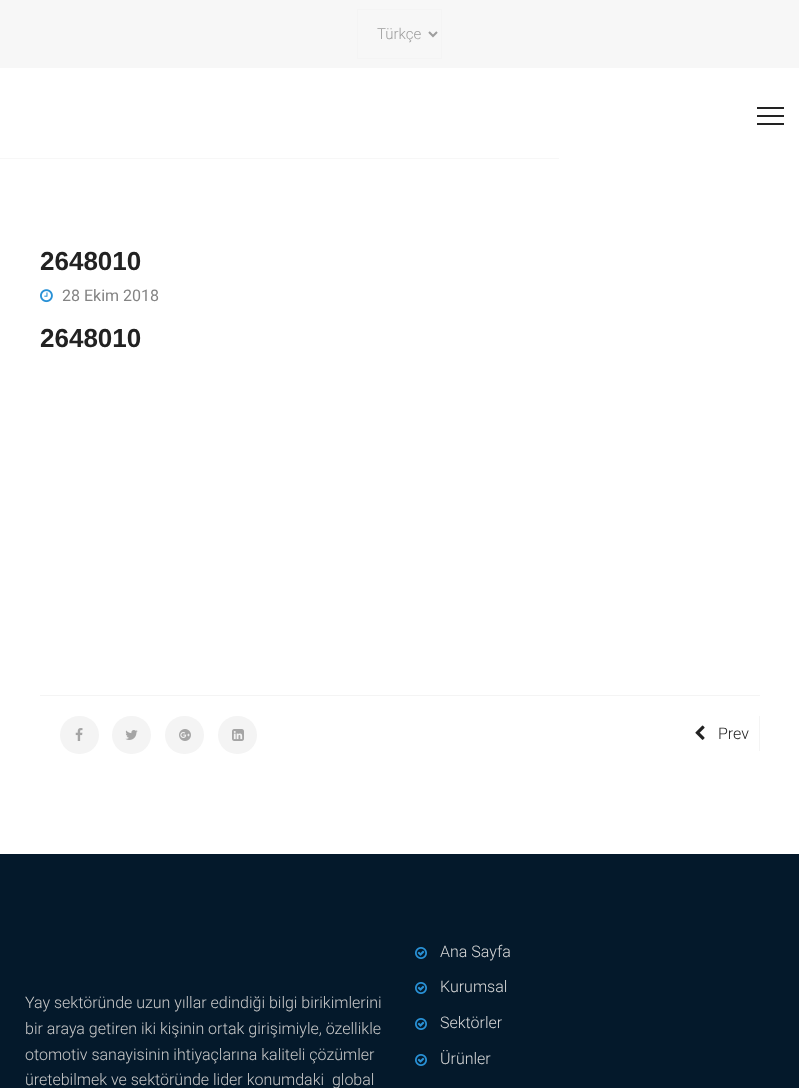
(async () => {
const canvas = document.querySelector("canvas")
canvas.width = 799
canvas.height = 1088
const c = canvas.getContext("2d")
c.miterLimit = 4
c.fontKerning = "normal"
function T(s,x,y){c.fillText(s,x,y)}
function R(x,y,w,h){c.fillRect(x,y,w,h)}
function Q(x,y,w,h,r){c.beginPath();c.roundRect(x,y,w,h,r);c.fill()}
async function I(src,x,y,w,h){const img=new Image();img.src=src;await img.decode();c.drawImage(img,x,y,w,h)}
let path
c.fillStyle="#fff"
R(0,0,799,1088)
c.fillStyle="#f7f7f7"
R(0,0,799,68)
c.strokeStyle="#f4f4f4"
c.strokeRect(357.5,9.5,84,49)
path = new Path2D("M429 32l4 4l4-4")
c.strokeStyle="#9e9e9e"
c.lineWidth=2
c.stroke(path)
c.font="300 15px Roboto"
c.fillStyle="#9e9e9e"
T("Türkçe",377,39)
c.fillStyle="#222"
R(757,115,27,2)
R(757,107,27,2)
R(757,123,27,2)
c.fillStyle="#f7f7f7"
R(0,158,559,1)
c.font="bold 26px Liberation Sans"
c.fillStyle="#222"
T("2648010",40,270)
await I("1.png",40,289,13,14)
c.font="16px Roboto"
c.fillStyle="#848484"
T("28 Ekim 2018",62,301)
c.font="bold 26px Liberation Sans"
c.fillStyle="#222"
T("2648010",40,347)
c.fillStyle="#f4f4f4"
R(40,695,720,1)
Q(60,716,39,38,19)
await I("2.png",75,728,8,13)
Q(112,716,39,38,19)
await I("3.png",125,730,13,10)
Q(165,716,39,38,19)
await I("4.png",179,729,12,12)
Q(218,716,39,38,19)
await I("5.png",232,729,12,12)
R(759,716,1,35)
await I("6.png",695,725,10,15)
c.font="300 16px Roboto"
c.fillStyle="#222"
T("Prev",718,739)
c.fillStyle="#04192b"
R(0,854,799,234)
c.fillStyle="#c8c8c8"
T("Yay sektöründe uzun yıllar edindiği bilgi birikimlerini",25,1008)
T("bir araya getiren iki kişinin ortak girişimiyle, özellikle",25,1034)
T("otomotiv sanayisinin ihtiyaçlarına kaliteli çözümler",25,1060)
T("üretebilmek ve sektöründe lider konumdaki  global",25,1085)
await I("7.png",415,947,12,12)
c.fillStyle="#d8d8d8"
T("Ana Sayfa",440,957)
await I("7.png",415,982,12,12)
T("Kurumsal",440,992)
await I("7.png",415,1018,12,12)
T("Sektörler",440,1028)
await I("7.png",415,1054,12,12)
T("Ürünler",440,1064)
})()
